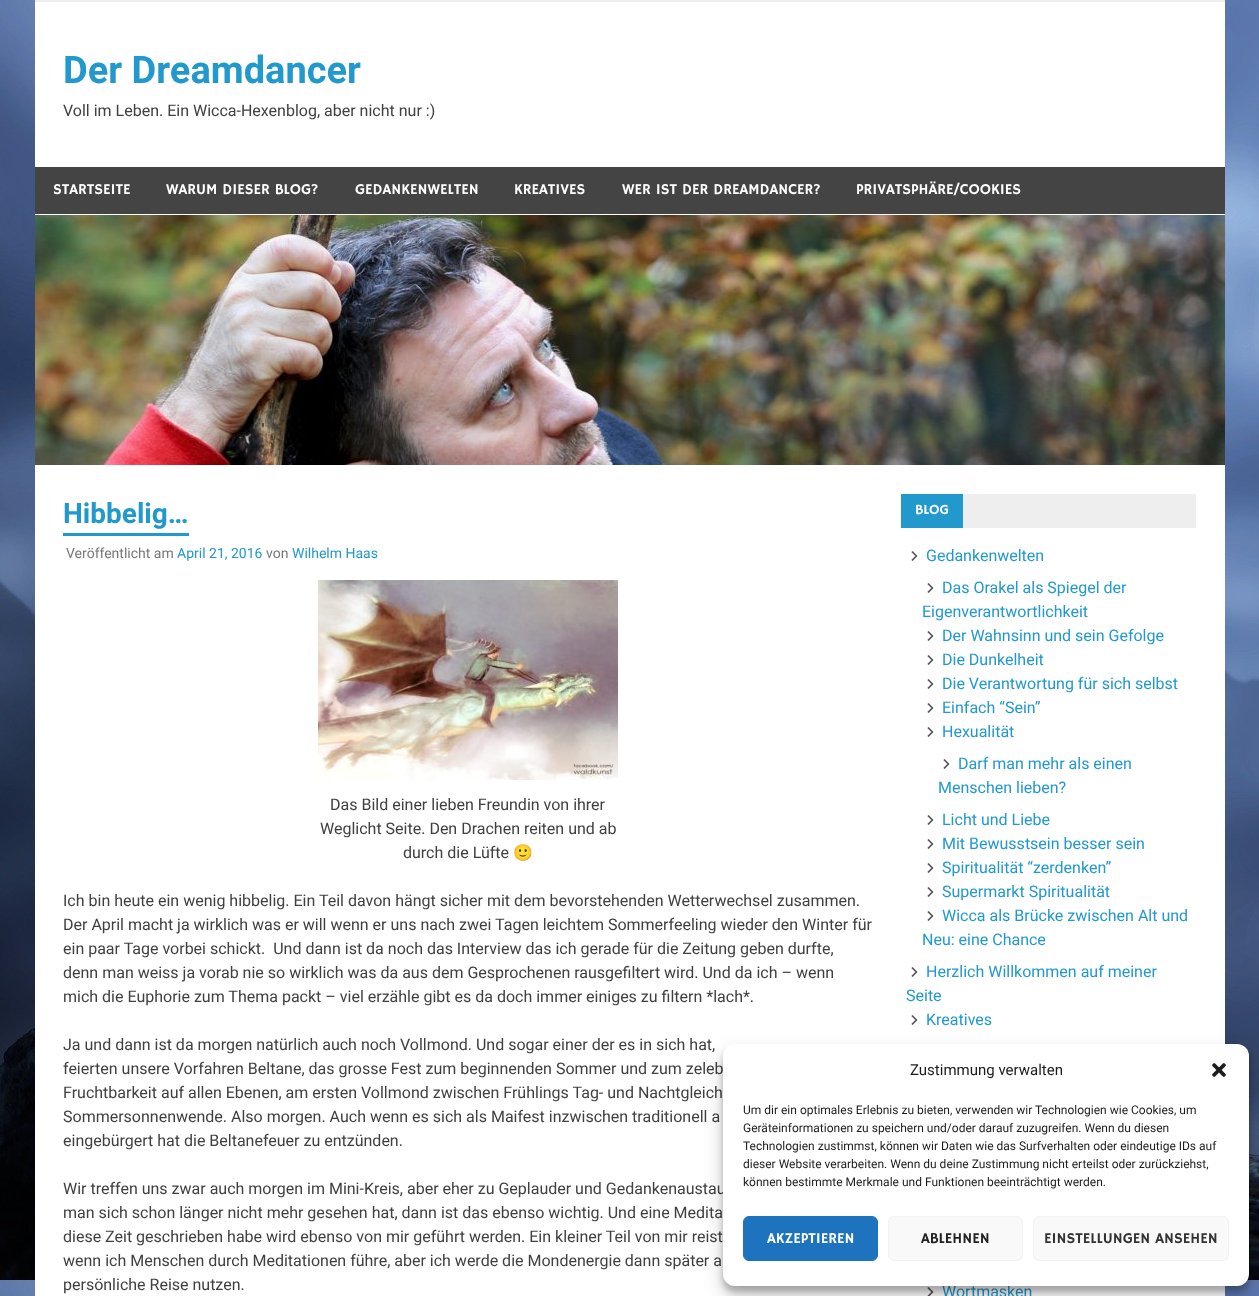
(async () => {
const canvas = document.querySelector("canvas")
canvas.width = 1259
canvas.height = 1296
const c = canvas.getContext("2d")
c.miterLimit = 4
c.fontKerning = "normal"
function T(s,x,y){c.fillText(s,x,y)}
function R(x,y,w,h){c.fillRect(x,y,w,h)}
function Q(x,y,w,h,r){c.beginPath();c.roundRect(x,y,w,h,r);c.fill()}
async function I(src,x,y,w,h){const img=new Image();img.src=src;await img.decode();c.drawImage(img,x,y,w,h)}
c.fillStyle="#fff"
R(0,0,1259,1296)
await I("1.png",0,0,1259,1296)
R(35,2,1190,1294)
c.fillStyle="#eee"
R(35,0,1190,2)
c.font="bold 38px Roboto"
c.fillStyle="#29c"
T("Der Dreamdancer",63,83)
c.font="16px Roboto"
c.fillStyle="#404040"
T("Voll im Leben. Ein Wicca-Hexenblog, aber nicht nur :)",63,116)
c.fillStyle="#444"
R(35,167,1190,47)
c.font="15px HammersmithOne"
c.fillStyle="#fff"
T("STARTSEITE",53,194)
T("WARUM DIESER BLOG?",166,194)
T("GEDANKENWELTEN",355,194)
T("KREATIVES",514,194)
T("WER IST DER DREAMDANCER?",622,194)
T("PRIVATSPHÄRE/COOKIES",856,194)
await I("2.png",35,215,1190,250)
c.font="bold 28px Roboto"
c.fillStyle="#29c"
T("Hibbelig…",63,523)
R(63,533,126,3)
c.font="14px Roboto"
c.fillStyle="#777"
T("Veröffentlicht am",66,558)
c.fillStyle="#29c"
T("April 21, 2016",177,558)
c.fillStyle="#777"
T("von",266,558)
c.fillStyle="#29c"
T("Wilhelm Haas",292,558)
await I("3.png",318,580,300,200)
c.font="16px Roboto"
c.fillStyle="#404040"
T("Das Bild einer lieben Freundin von ihrer",330,810)
T("Weglicht Seite. Den Drachen reiten und ab",320,834)
T("durch die Lüfte",403,858)
c.font="16px Noto Color Emoji"
T("🙂",513,858)
c.font="16px Roboto"
T("Ich bin heute ein wenig hibbelig. Ein Teil davon hängt sicher mit dem bevorstehenden Wetterwechsel zusammen.",63,906)
T("Der April macht ja wirklich was er will wenn er uns nach zwei Tagen leichtem Sommerfeeling wieder den Winter für",63,930)
T("ein paar Tage vorbei schickt.  Und dann ist da noch das Interview das ich gerade für die Zeitung geben durfte,",63,954)
T("denn man weiss ja vorab nie so wirklich was da aus dem Gesprochenen rausgefiltert wird. Und da ich – wenn",63,978)
T("mich die Euphorie zum Thema packt – viel erzähle gibt es da doch immer einiges zu filtern *lach*.",63,1002)
T("Ja und dann ist da morgen natürlich auch noch Vollmond. Und sogar einer der es in sich hat,",63,1050)
T("feierten unsere Vorfahren Beltane, das grosse Fest zum beginnenden Sommer und zum zeleb",63,1074)
T("Fruchtbarkeit auf allen Ebenen, am ersten Vollmond zwischen Frühlings Tag- und Nachtgleich",63,1098)
T("Sommersonnenwende. Also morgen. Auch wenn es sich als Maifest inzwischen traditionell a",63,1122)
T("eingebürgert hat die Beltanefeuer zu entzünden.",63,1146)
T("Wir treffen uns zwar auch morgen im Mini-Kreis, aber eher zu Geplauder und Gedankenaustau",63,1194)
T("man sich schon länger nicht mehr gesehen hat, dann ist das ebenso wichtig. Und eine Medita",63,1218)
T("diese Zeit geschrieben habe wird ebenso von mir geführt werden. Ein kleiner Teil von mir reist",63,1242)
T("wenn ich Menschen durch Meditationen führe, aber ich werde die Mondenergie dann später a",63,1266)
T("persönliche Reise nutzen.",63,1290)
c.fillStyle="#eee"
R(963,494,233,34)
c.fillStyle="#29c"
R(901,494,62,34)
c.font="14px HammersmithOne"
c.fillStyle="#fff"
T("BLOG",915,514)
await I("4.png",911,551,7,10)
c.font="16px Roboto"
c.fillStyle="#29c"
T("Gedankenwelten",926,561)
await I("4.png",927,583,7,10)
T("Das Orakel als Spiegel der",942,593)
T("Eigenverantwortlichkeit",922,617)
await I("4.png",927,631,7,10)
T("Der Wahnsinn und sein Gefolge",942,641)
await I("4.png",927,655,7,10)
T("Die Dunkelheit",942,665)
await I("4.png",927,679,7,10)
T("Die Verantwortung für sich selbst",942,689)
await I("4.png",927,703,7,10)
T("Einfach “Sein”",942,713)
await I("4.png",927,727,7,10)
T("Hexualität",942,737)
await I("4.png",943,759,7,10)
T("Darf man mehr als einen",958,769)
T("Menschen lieben?",938,793)
await I("4.png",927,815,7,10)
T("Licht und Liebe",942,825)
await I("4.png",927,839,7,10)
T("Mit Bewusstsein besser sein",942,849)
await I("4.png",927,863,7,10)
T("Spiritualität “zerdenken”",942,873)
await I("4.png",927,887,7,10)
T("Supermarkt Spiritualität",942,897)
await I("4.png",927,911,7,10)
T("Wicca als Brücke zwischen Alt und",942,921)
T("Neu: eine Chance",922,945)
await I("4.png",911,967,7,10)
T("Herzlich Willkommen auf meiner",926,977)
T("Seite",906,1001)
await I("4.png",911,1015,7,10)
T("Kreatives",926,1025)
await I("5.png",927,1287,7,9)
T("Wortmasken",942,1297)
c.fillStyle="#0000003b"
c.filter="blur(3px)"
c.beginPath()
c.roundRect(723,1050,526,242,12)
c.fill()
c.filter="none"
c.fillStyle="#00000030"
c.filter="blur(10px)"
c.beginPath()
c.roundRect(723,1054,526,242,12)
c.fill()
c.filter="none"
c.fillStyle="#fff"
Q(723,1044,526,242,12)
c.font="15px Roboto"
c.fillStyle="#1c1c1c"
T("Zustimmung verwalten",910,1075)
await I("6.png",1212,1063,14,14)
c.font="12px Roboto"
T("Um dir ein optimales Erlebnis zu bieten, verwenden wir Technologien wie Cookies, um",743,1114)
T("Geräteinformationen zu speichern und/oder darauf zuzugreifen. Wenn du diesen",743,1132)
T("Technologien zustimmst, können wir Daten wie das Surfverhalten oder eindeutige IDs auf",743,1150)
T("dieser Website verarbeiten. Wenn du deine Zustimmung nicht erteilst oder zurückziehst,",743,1168)
T("können bestimmte Merkmale und Funktionen beeinträchtigt werden.",743,1186)
c.fillStyle="#1e73be"
c.beginPath()
c.roundRect(743.5,1216.5,134,44,5.5)
c.fill()
c.strokeStyle="#1e73be"
c.stroke()
c.font="15px HammersmithOne"
c.fillStyle="#fff"
T("AKZEPTIEREN",767,1243)
c.fillStyle="#f9f9f9"
c.beginPath()
c.roundRect(888.5,1216.5,134,44,5.5)
c.fill()
c.strokeStyle="#f2f2f2"
c.stroke()
c.fillStyle="#222"
T("ABLEHNEN",921,1243)
c.fillStyle="#f9f9f9"
c.beginPath()
c.roundRect(1033.5,1216.5,195,44,5.5)
c.fill()
c.stroke()
c.fillStyle="#333"
T("EINSTELLUNGEN ANSEHEN",1044,1243)
})()
